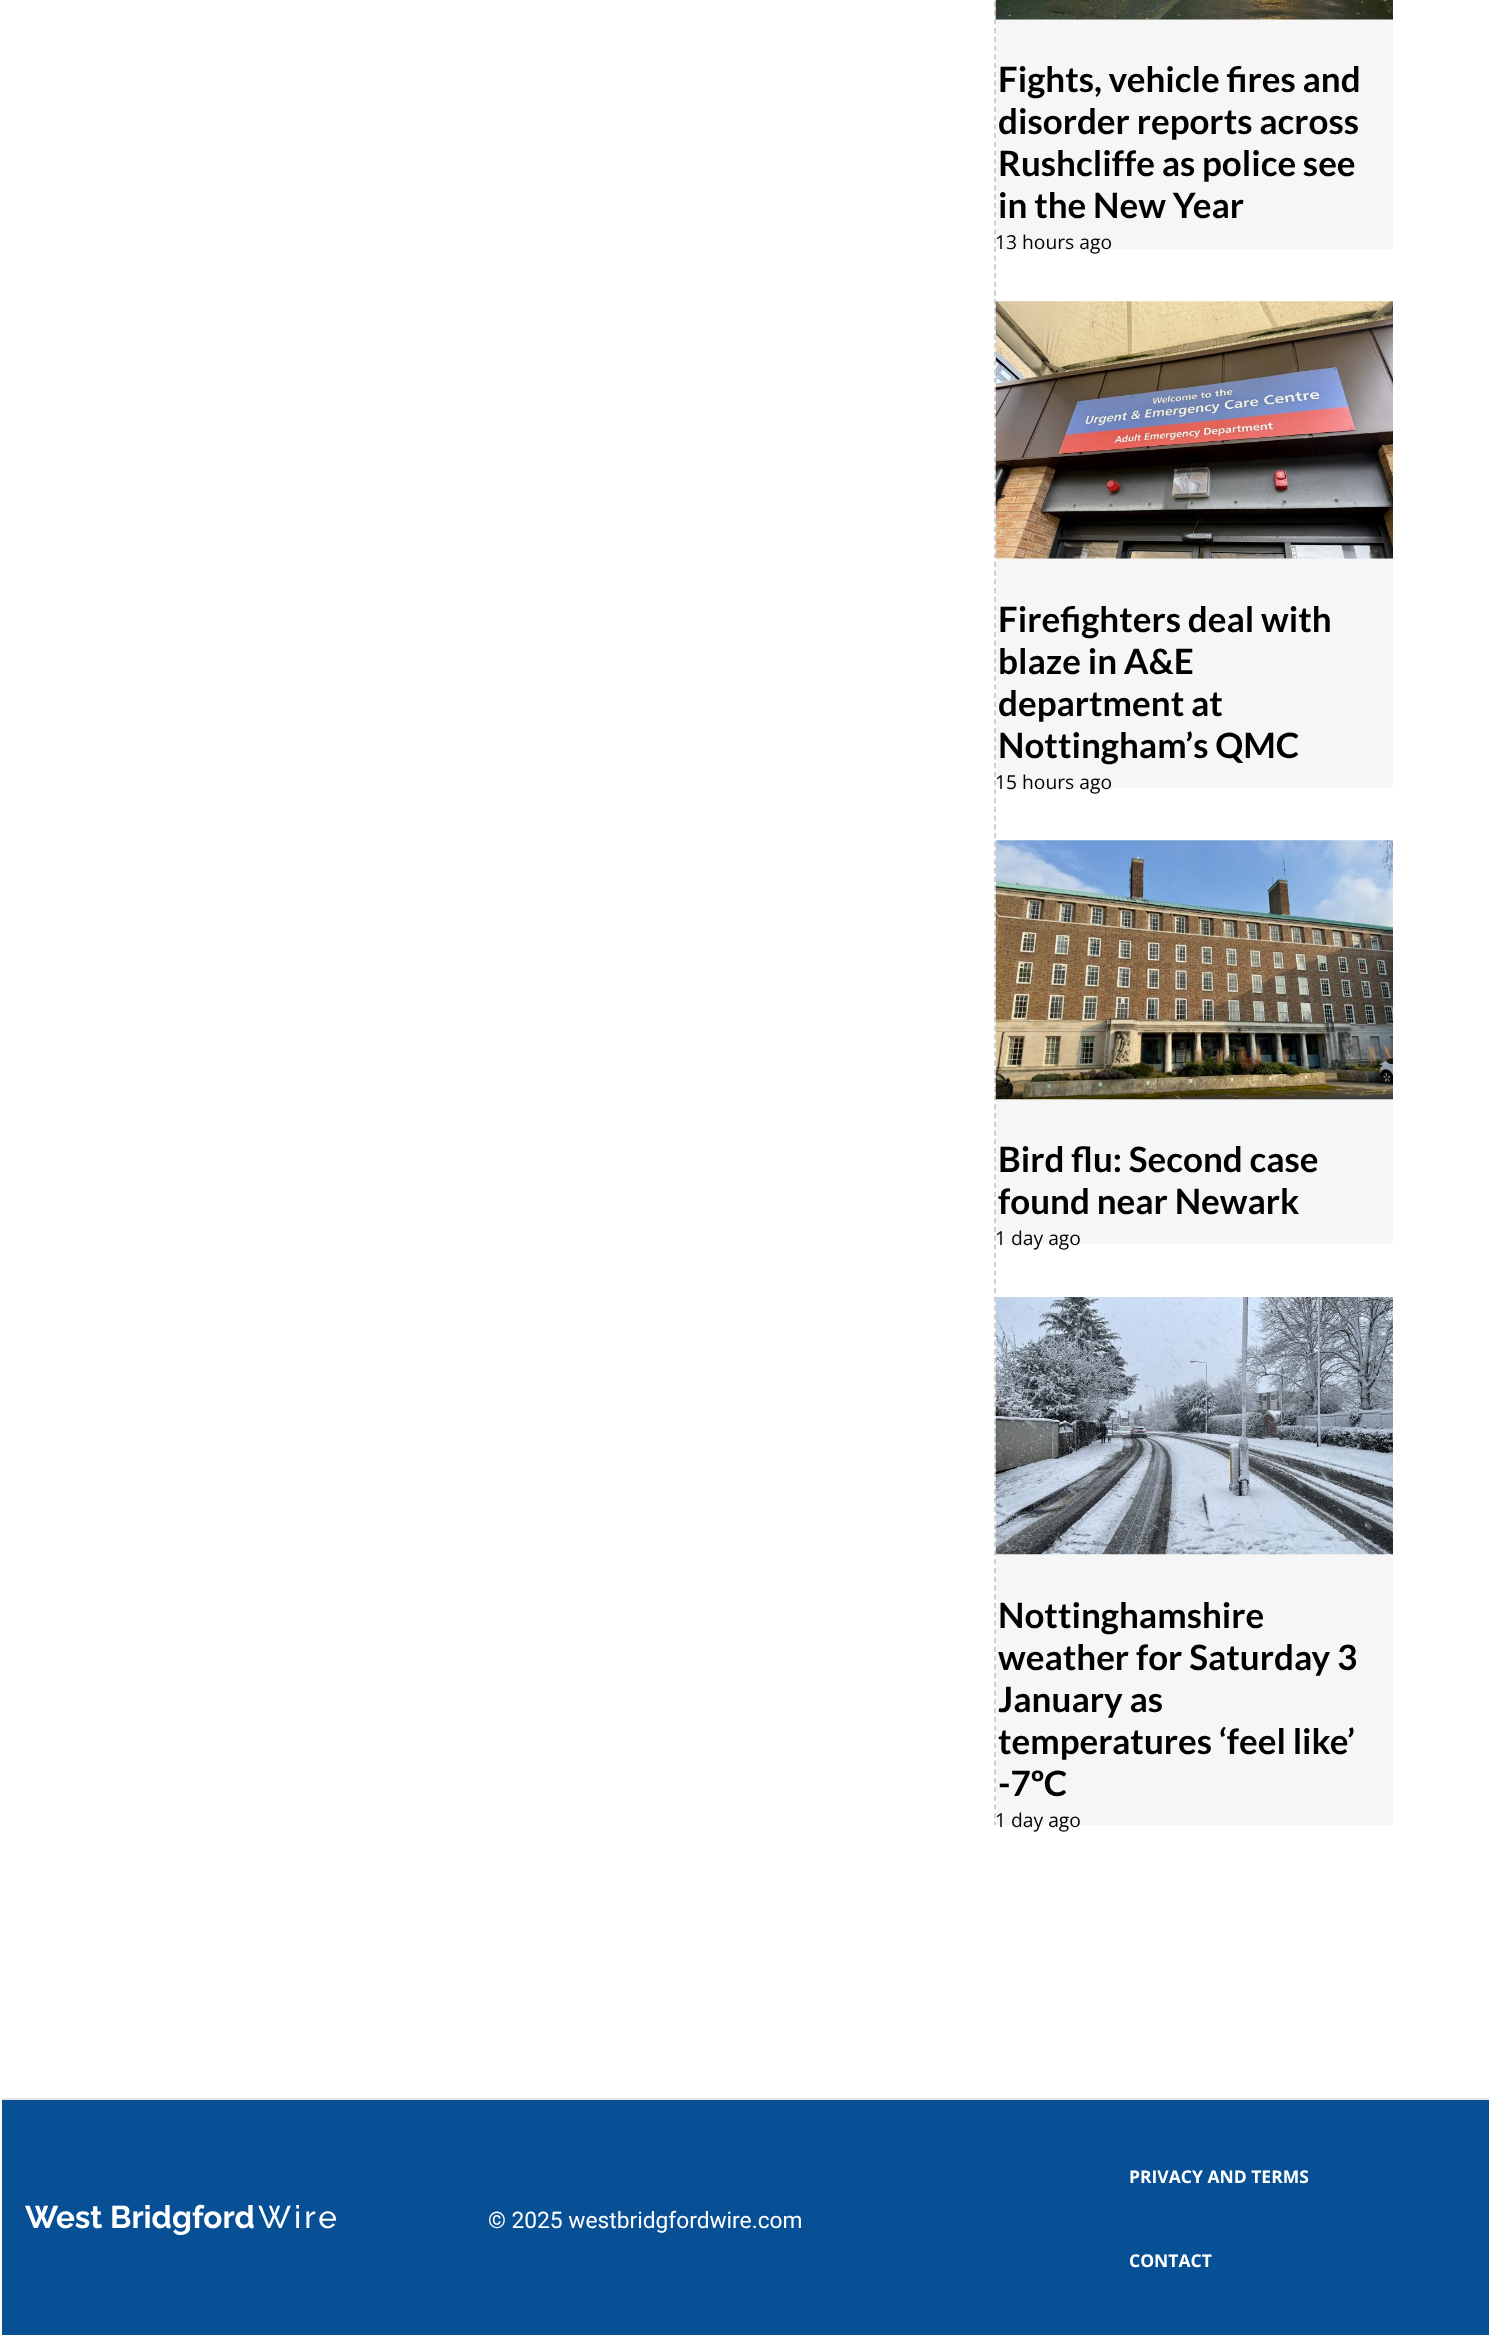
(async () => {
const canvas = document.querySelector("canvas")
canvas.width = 1489
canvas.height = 2335
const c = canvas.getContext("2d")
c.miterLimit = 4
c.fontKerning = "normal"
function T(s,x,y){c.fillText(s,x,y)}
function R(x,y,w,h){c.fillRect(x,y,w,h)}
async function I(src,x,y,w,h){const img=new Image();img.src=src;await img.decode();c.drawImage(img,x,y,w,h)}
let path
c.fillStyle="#fff"
R(0,0,1489,2335)
path = new Path2D("M995-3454.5v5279.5")
c.strokeStyle="#ccc"
c.lineWidth=1.8
c.setLineDash([5.25,3.5])
c.stroke(path)
c.fillStyle="#f6f6f6"
R(996,19,397,230)
await I("1.png",995,0,398,20)
c.font="bold 35px Lato"
c.fillStyle="#000"
T("Fights, vehicle fires and",998,92)
T("disorder reports across",998,134)
T("Rushcliffe as police see",998,176)
T("in the New Year",998,218)
c.font="19.25px Open Sans"
T("13 hours ago",995,249)
c.fillStyle="#f6f6f6"
R(996,301,397,487)
await I("2.png",995,301,398,258)
c.font="bold 35px Lato"
c.fillStyle="#000"
T("Firefighters deal with",998,632)
T("blaze in A&E",998,674)
T("department at",998,716)
T("Nottingham’s QMC",998,758)
c.font="19.25px Open Sans"
T("15 hours ago",995,789)
c.fillStyle="#f6f6f6"
R(996,840,397,404)
await I("3.png",995,840,398,260)
c.font="bold 35px Lato"
c.fillStyle="#000"
T("Bird flu: Second case",998,1172)
T("found near Newark",998,1214)
c.font="19.25px Open Sans"
T("1 day ago",995,1245)
c.fillStyle="#f6f6f6"
R(996,1554,397,271)
await I("4.png",995,1297,398,258)
c.font="bold 35px Lato"
c.fillStyle="#000"
T("Nottinghamshire",998,1628)
T("weather for Saturday 3",998,1670)
T("January as",998,1712)
T("temperatures ‘feel like’",998,1754)
T("-7ºC",998,1796)
c.font="19.25px Open Sans"
T("1 day ago",995,1827)
c.fillStyle="#085096"
R(2,2100,1487,235)
c.fillStyle="#e8e8e8"
R(2,2098,1487,2)
c.font="bold 31.5px Raleway"
c.fillStyle="#fff"
T("West Bridgford",25,2228)
c.letterSpacing="3px"
c.font="500 31.5px Raleway"
T("Wire",258,2228)
c.letterSpacing="0px"
c.font="22.75px Roboto"
T("© 2025 westbridgfordwire.com",488,2228)
c.font="bold 17.5px Open Sans"
T("PRIVACY AND TERMS",1129,2183)
T("CONTACT",1129,2267)
})()
